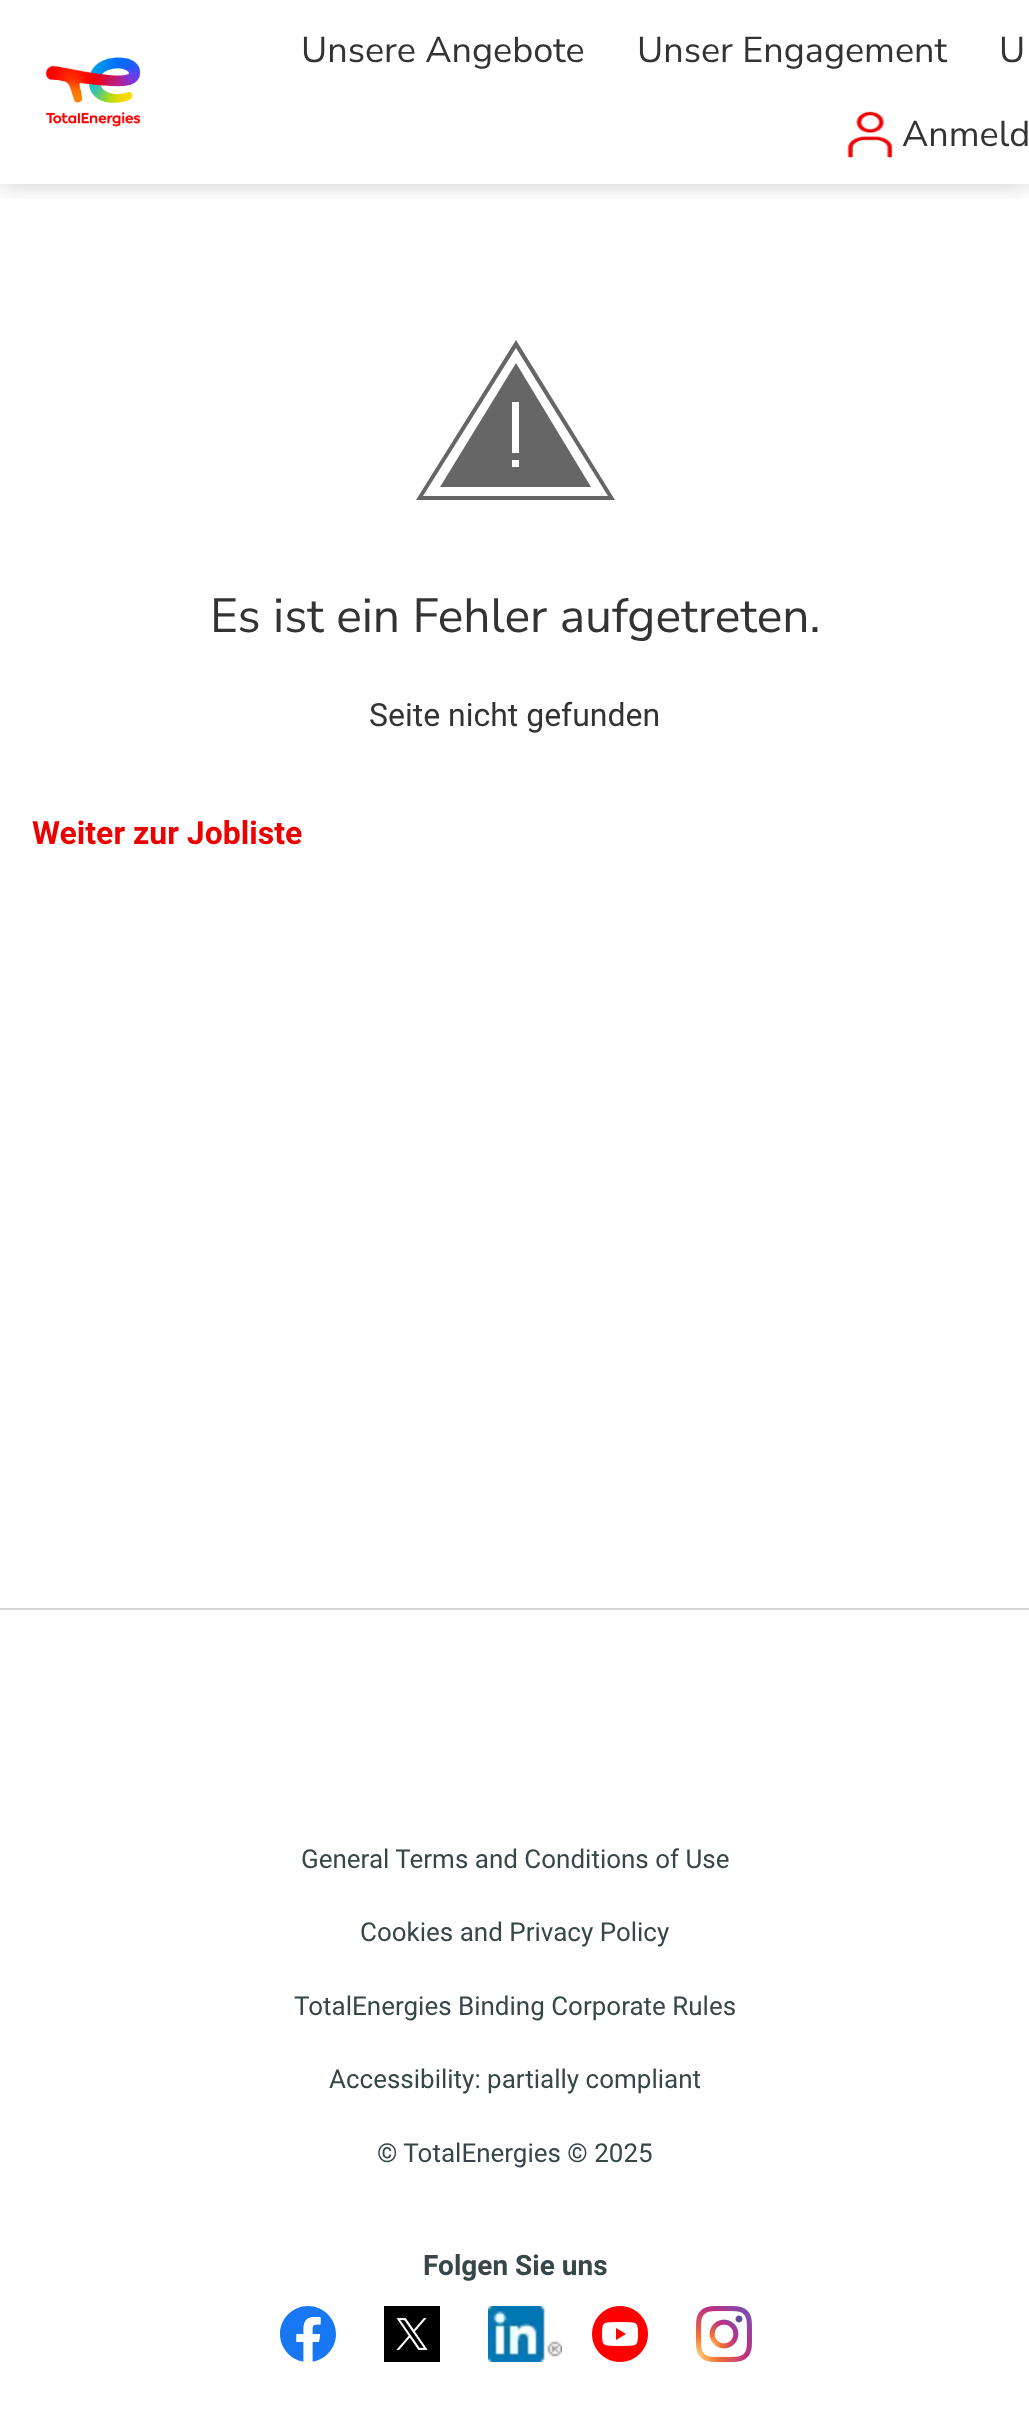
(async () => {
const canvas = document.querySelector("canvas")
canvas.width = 1029
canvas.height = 2410
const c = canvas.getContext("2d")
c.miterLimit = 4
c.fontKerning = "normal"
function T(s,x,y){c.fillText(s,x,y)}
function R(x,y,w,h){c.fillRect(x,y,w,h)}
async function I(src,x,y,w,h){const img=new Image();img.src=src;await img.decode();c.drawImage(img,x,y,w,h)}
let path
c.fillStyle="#fff"
R(0,0,1029,2410)
c.save()
c.beginPath()
c.rect(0,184,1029,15)
c.clip()
c.fillStyle="#00000033"
c.filter="blur(12px)"
c.beginPath()
c.rect(0,0,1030,184)
c.fill()
c.filter="none"
c.restore()
await I("1.png",46,57,95,70)
c.font="36px Nunito Sans"
c.fillStyle="#333"
T("Unsere Angebote",301,62)
T("Unser Engagement",637,62)
T("U",999,62)
await I("2.png",847,111,46,47)
T("Anmeld",902,146)
c.fillStyle="#666"
path = new Path2D("M516 340l99 160h-199zm0 8l-93 148h185zm0 15l75 124h-151zm3 97h-7v7h7zm0-58h-7v51h7z")
c.fill(path)
c.font="48px Nunito Sans"
c.fillStyle="#333"
T("Es ist ein Fehler aufgetreten.",210,632)
c.font="32px Roboto"
T("Seite nicht gefunden",369,726)
c.font="bold 32px Roboto"
c.fillStyle="#ed0000"
T("Weiter zur Jobliste",32,844)
c.fillStyle="#d6d6d8"
R(0,1608,1029,2)
c.font="26px Roboto"
c.fillStyle="#374649"
T("General Terms and Conditions of Use",301,1868)
T("Cookies and Privacy Policy",360,1941)
T("TotalEnergies Binding Corporate Rules",294,2015)
T("Accessibility: partially compliant",329,2088)
T("© TotalEnergies © 2025",377,2162)
c.font="bold 28px Roboto"
T("Folgen Sie uns",423,2275)
await I("3.png",280,2306,56,56)
await I("4.png",384,2306,56,56)
await I("5.png",488,2306,74,56)
await I("6.png",592,2306,56,56)
await I("7.png",696,2306,56,56)
})()
